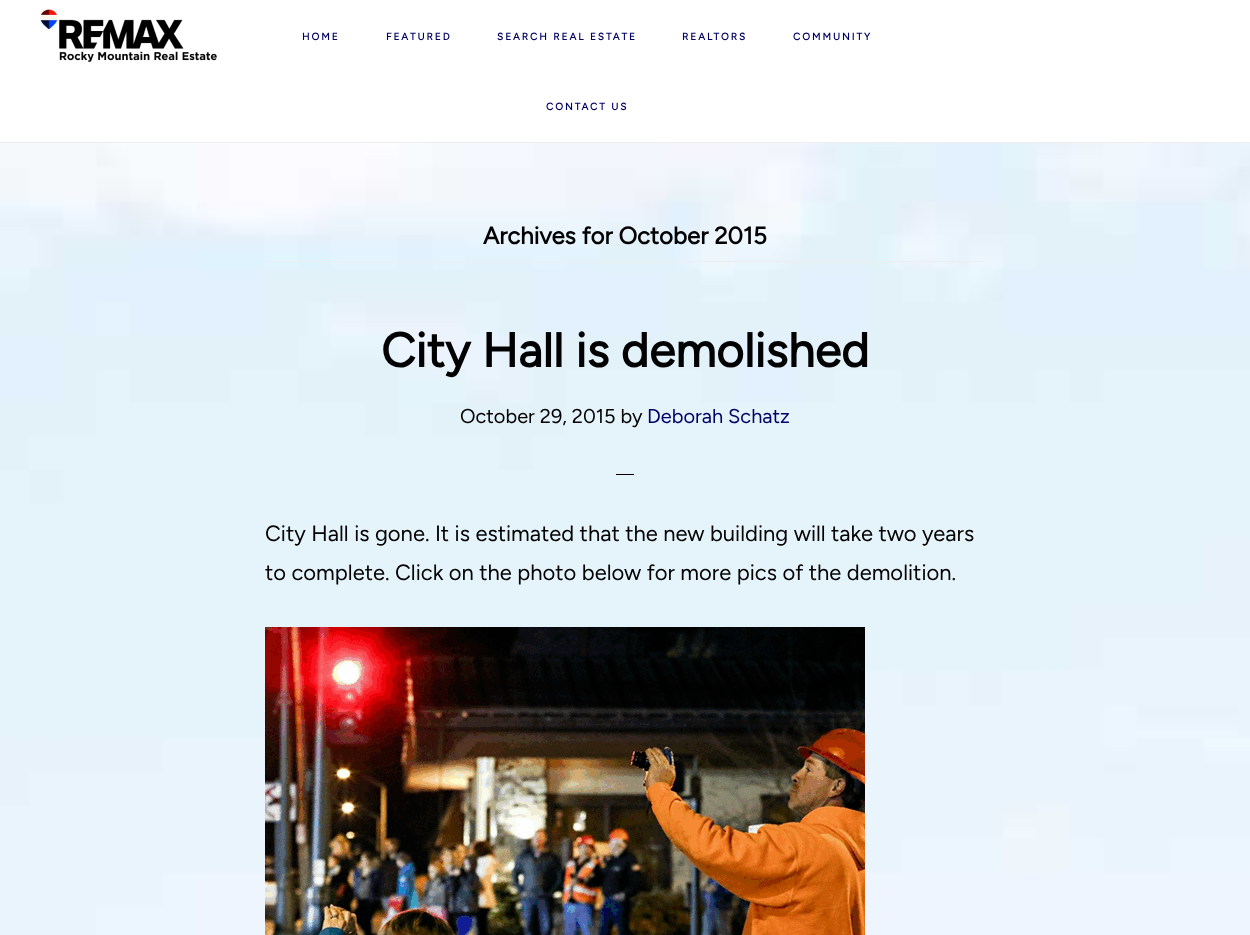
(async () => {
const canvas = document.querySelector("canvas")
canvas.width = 1250
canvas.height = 935
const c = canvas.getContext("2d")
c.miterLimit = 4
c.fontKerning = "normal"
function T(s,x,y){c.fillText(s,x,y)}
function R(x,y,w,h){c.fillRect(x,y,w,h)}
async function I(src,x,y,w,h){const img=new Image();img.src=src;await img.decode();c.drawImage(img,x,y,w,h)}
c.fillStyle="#fff"
R(0,0,1250,935)
await I("1.png",0,143,1250,792)
c.fillStyle="#eee"
R(0,142,1250,1)
await I("2.png",40,9,177,54)
c.letterSpacing="2px"
c.font="bold 10px Figtree"
c.fillStyle="#006"
T("HOME",302,40)
T("FEATURED",386,40)
T("SEARCH REAL ESTATE",497,40)
T("REALTORS",682,40)
T("COMMUNITY",793,40)
T("CONTACT US",546,110)
c.fillStyle="#eee"
R(265,261,720,1)
c.letterSpacing="0px"
c.font="bold 24px Figtree"
c.fillStyle="#000"
T("Archives for October 2015",483,244)
c.font="bold 48px Figtree"
T("City Hall is demolished",381,367)
c.font="300 20px Figtree"
T("October 29, 2015 by",460,423)
c.fillStyle="#006"
T("Deborah Schatz",647,423)
c.fillStyle="#000"
R(616,474,18,1)
c.font="300 22px Figtree"
T("City Hall is gone. It is estimated that the new building will take two years",265,541)
T("to complete. Click on the photo below for more pics of the demolition.",265,580)
await I("3.png",265,627,600,308)
})()
